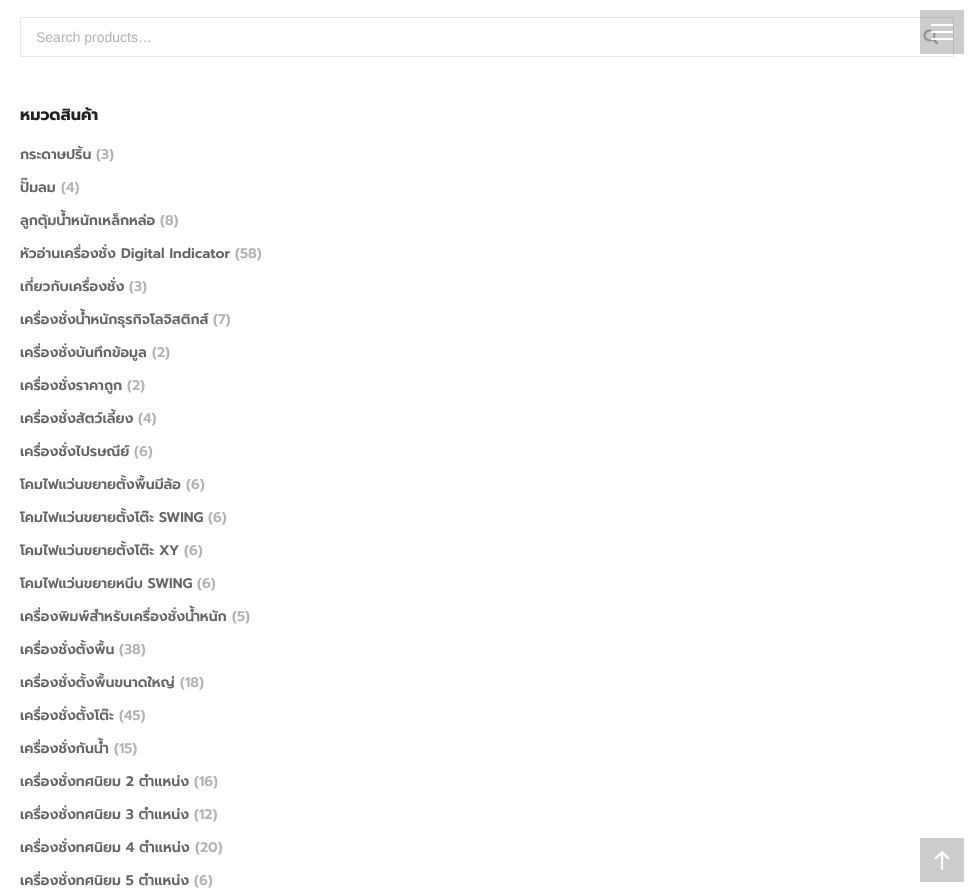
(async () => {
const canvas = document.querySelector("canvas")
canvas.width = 974
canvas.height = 892
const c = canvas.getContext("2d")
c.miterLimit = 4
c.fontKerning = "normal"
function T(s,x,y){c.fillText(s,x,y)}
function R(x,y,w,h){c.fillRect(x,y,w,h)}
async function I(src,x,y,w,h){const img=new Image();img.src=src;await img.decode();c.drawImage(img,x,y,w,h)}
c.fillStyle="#fff"
R(0,0,974,892)
c.strokeStyle="#e6e6e6"
c.strokeRect(20.5,17.5,933,39)
c.font="14px Liberation Sans"
c.fillStyle="#b3b3b3"
T("Search products…",36,42)
await I("1.png",923,29,16,16)
c.font="bold 16px Prompt"
c.fillStyle="#222"
T("หมวดสินค้า",20,120)
c.font="600 14px Prompt"
c.fillStyle="#666"
T("กระดาษปริ้น",20,159)
c.fillStyle="#b3b3b3"
T("(3)",96,159)
c.save()
c.beginPath()
c.rect(20,176,934,24)
c.clip()
c.fillStyle="#666"
T("ปั๊มลม",20,192)
c.restore()
T("(4)",61,192)
c.save()
c.beginPath()
c.rect(20,209,934,24)
c.clip()
c.fillStyle="#666"
T("ลูกตุ้มน้ำหนักเหล็กหล่อ",20,225)
c.restore()
T("(8)",160,225)
c.save()
c.beginPath()
c.rect(20,242,934,24)
c.clip()
c.fillStyle="#666"
T("หัวอ่านเครื่องชั่ง Digital Indicator",20,258)
c.restore()
T("(58)",235,258)
c.save()
c.beginPath()
c.rect(20,275,934,24)
c.clip()
c.fillStyle="#666"
T("เกี่ยวกับเครื่องชั่ง",20,291)
c.restore()
T("(3)",129,291)
c.fillStyle="#666"
T("เครื่องชั่งน้ำหนักธุรกิจโลจิสติกส์",20,324)
c.fillStyle="#b3b3b3"
T("(7)",213,324)
c.fillStyle="#666"
T("เครื่องชั่งบันทึกข้อมูล",20,357)
c.fillStyle="#b3b3b3"
T("(2)",152,357)
c.fillStyle="#666"
T("เครื่องชั่งราคาถูก",20,390)
c.fillStyle="#b3b3b3"
T("(2)",127,390)
c.fillStyle="#666"
T("เครื่องชั่งสัตว์เลี้ยง",20,423)
c.fillStyle="#b3b3b3"
T("(4)",138,423)
c.fillStyle="#666"
T("เครื่องชั่งไปรษณีย์",20,456)
c.fillStyle="#b3b3b3"
T("(6)",134,456)
c.fillStyle="#666"
T("โคมไฟแว่นขยายตั้งพื้นมีล้อ",20,489)
c.fillStyle="#b3b3b3"
T("(6)",186,489)
c.fillStyle="#666"
T("โคมไฟแว่นขยายตั้งโต๊ะ SWING",20,522)
c.fillStyle="#b3b3b3"
T("(6)",208,522)
c.fillStyle="#666"
T("โคมไฟแว่นขยายตั้งโต๊ะ XY",20,555)
c.fillStyle="#b3b3b3"
T("(6)",184,555)
c.fillStyle="#666"
T("โคมไฟแว่นขยายหนีบ SWING",20,588)
c.fillStyle="#b3b3b3"
T("(6)",197,588)
c.fillStyle="#666"
T("เครื่องพิมพ์สำหรับเครื่องชั่งน้ำหนัก",20,621)
c.fillStyle="#b3b3b3"
T("(5)",232,621)
c.fillStyle="#666"
T("เครื่องชั่งตั้งพื้น",20,654)
c.fillStyle="#b3b3b3"
T("(38)",119,654)
c.fillStyle="#666"
T("เครื่องชั่งตั้งพื้นขนาดใหญ่",20,687)
c.fillStyle="#b3b3b3"
T("(18)",180,687)
c.fillStyle="#666"
T("เครื่องชั่งตั้งโต๊ะ",20,720)
c.fillStyle="#b3b3b3"
T("(45)",119,720)
c.fillStyle="#666"
T("เครื่องชั่งกันน้ำ",20,753)
c.fillStyle="#b3b3b3"
T("(15)",114,753)
c.fillStyle="#666"
T("เครื่องชั่งทศนิยม 2 ตำแหน่ง",20,786)
c.fillStyle="#b3b3b3"
T("(16)",194,786)
c.fillStyle="#666"
T("เครื่องชั่งทศนิยม 3 ตำแหน่ง",20,819)
c.fillStyle="#b3b3b3"
T("(12)",194,819)
c.fillStyle="#666"
T("เครื่องชั่งทศนิยม 4 ตำแหน่ง",20,852)
c.fillStyle="#b3b3b3"
T("(20)",195,852)
c.fillStyle="#666"
T("เครื่องชั่งทศนิยม 5 ตำแหน่ง",20,885)
c.fillStyle="#b3b3b3"
T("(6)",194,885)
c.fillStyle="#00000033"
R(920,10,44,44)
c.fillStyle="#fff"
R(931,31,22,2)
R(931,24,22,2)
R(931,38,22,2)
c.fillStyle="#ccc"
R(920,838,44,44)
await I("2.png",934,851,16,19)
})()
